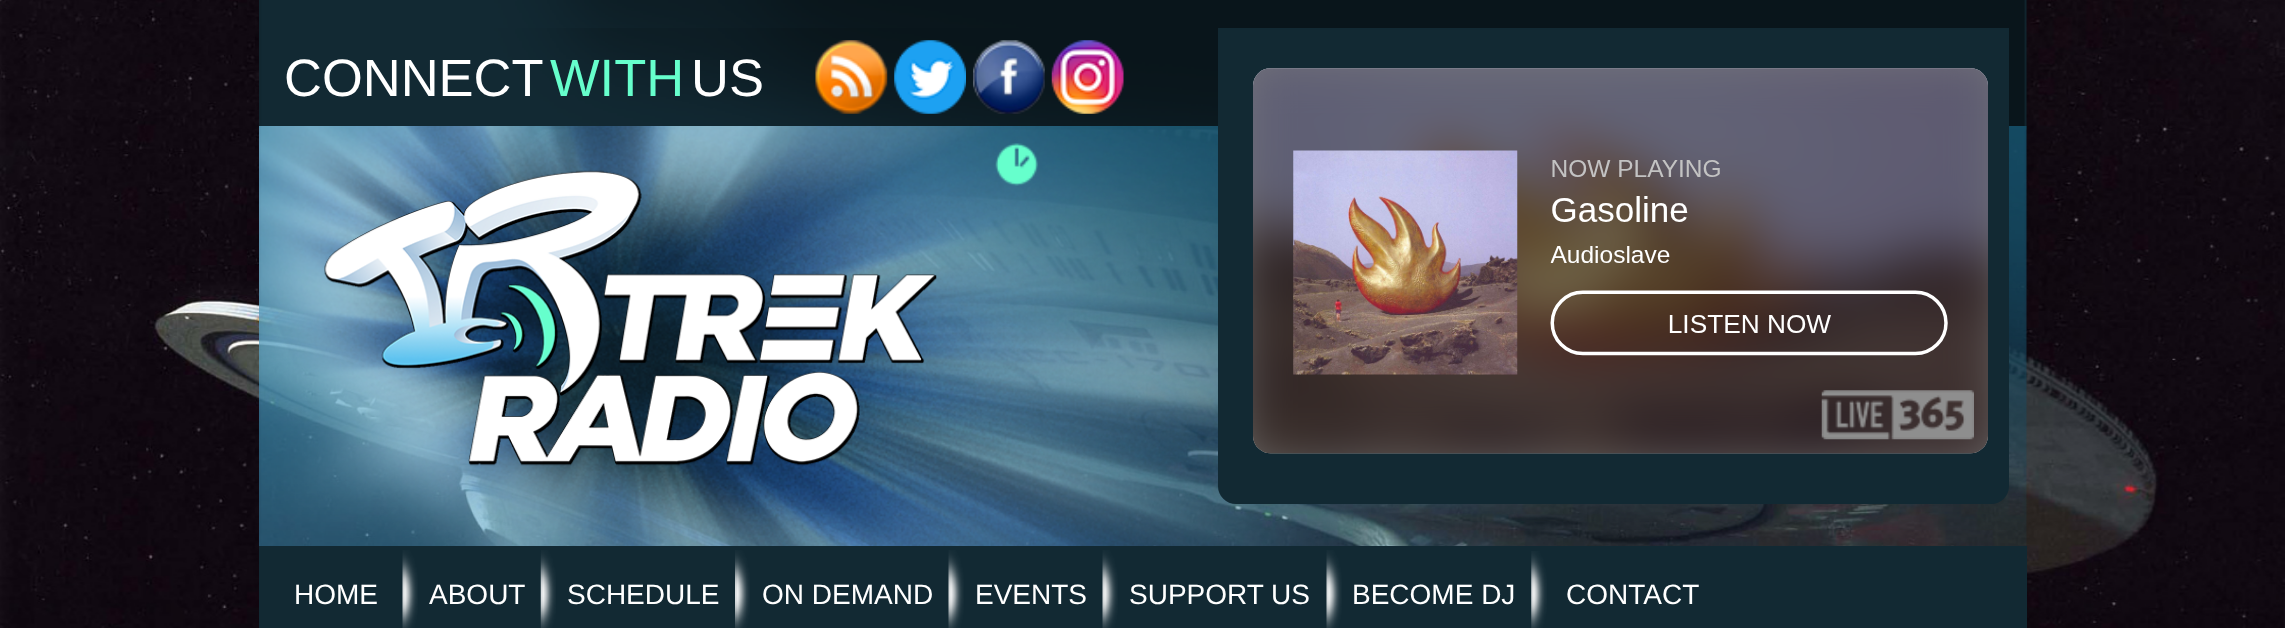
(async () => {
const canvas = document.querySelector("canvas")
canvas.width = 2285
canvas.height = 628
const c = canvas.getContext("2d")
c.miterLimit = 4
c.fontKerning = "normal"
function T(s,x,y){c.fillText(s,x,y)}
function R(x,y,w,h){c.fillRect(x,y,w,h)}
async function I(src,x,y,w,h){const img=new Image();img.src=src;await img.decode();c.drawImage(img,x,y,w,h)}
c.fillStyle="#fff"
R(0,0,2285,628)
await I("1.png",0,0,2285,628)
await I("2.png",259,0,1768,28)
await I("3.png",259,28,1768,102)
c.font="52.5px Liberation Sans"
T("CONNECT",284,96)
c.fillStyle="#6fc"
T("WITH",550,96)
c.fillStyle="#fff"
T("US",691,96)
await I("4.png",815,40,73,74)
await I("5.png",894,40,72,74)
await I("6.png",973,40,72,74)
await I("7.png",1051,40,73,74)
await I("9.png",259,126,1768,420)
c.fillStyle="#122933"
c.beginPath()
c.roundRect(1218,28,791,476,[0,0,18,18])
c.fill()
await I("8.png",1253,68,735,386)
await I("10.png",995,143,43,43)
await I("11.png",324,170,613,296)
R(259,546,1768,82)
await I("12.png",402,550,16,78)
c.font="28px Liberation Sans"
c.fillStyle="#fff"
T("HOME",294,604)
await I("13.png",540,550,16,78)
T("ABOUT",429,604)
await I("14.png",735,550,15,78)
T("SCHEDULE",567,604)
await I("12.png",948,550,16,78)
T("ON DEMAND",762,604)
await I("15.png",1102,550,16,78)
T("EVENTS",975,604)
await I("12.png",1326,550,16,78)
T("SUPPORT US",1129,604)
await I("16.png",1531,551,16,77)
T("BECOME DJ",1352,604)
T("CONTACT",1566,604)
})()
